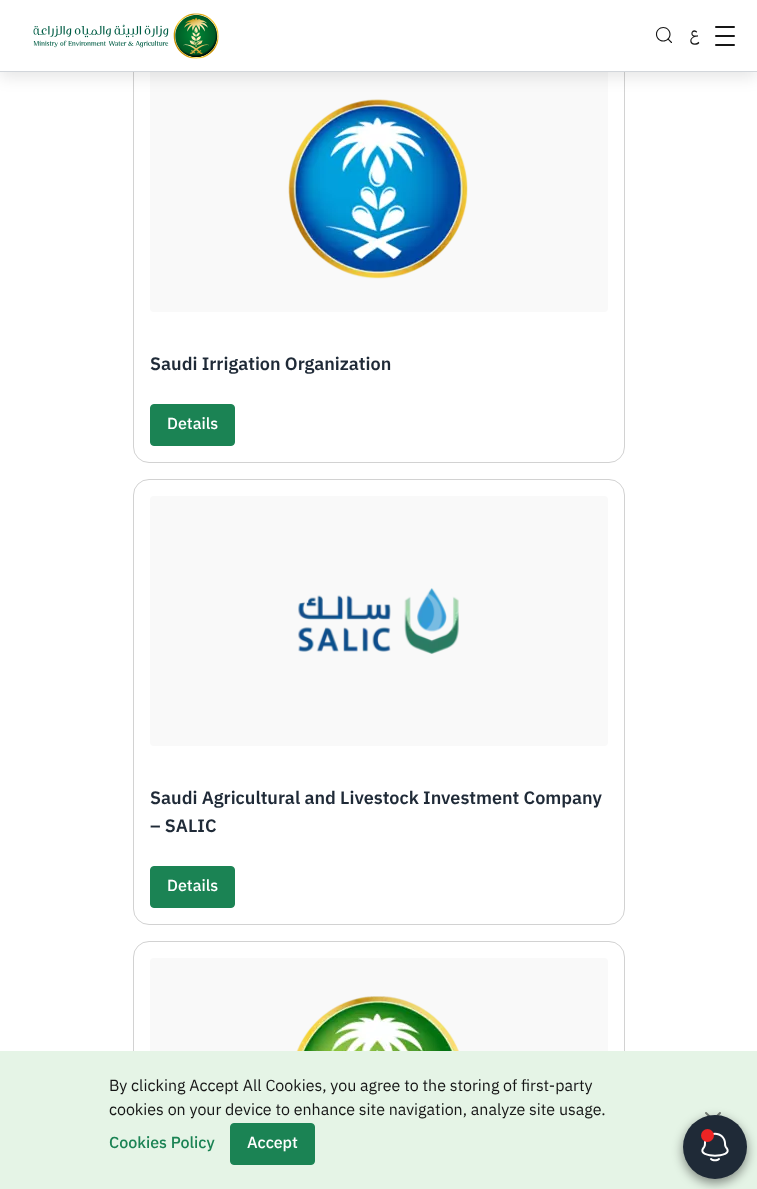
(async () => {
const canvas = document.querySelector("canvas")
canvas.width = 757
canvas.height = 1189
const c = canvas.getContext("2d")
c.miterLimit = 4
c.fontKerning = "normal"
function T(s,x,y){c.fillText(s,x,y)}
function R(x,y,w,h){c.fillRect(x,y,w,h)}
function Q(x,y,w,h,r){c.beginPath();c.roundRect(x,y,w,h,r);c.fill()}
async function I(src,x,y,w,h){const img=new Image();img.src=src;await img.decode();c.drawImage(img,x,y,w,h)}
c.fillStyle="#fff"
R(0,0,757,1189)
c.beginPath()
c.roundRect(133.5,45.5,491,417,15.5)
c.strokeStyle="#d2d2d2"
c.stroke()
c.fillStyle="#f9f9f9"
Q(150,62,458,250,4)
await I("3.png",288,99,180,180)
c.fillStyle="#0000001a"
c.filter="blur(8px)"
c.beginPath()
c.rect(0,5,757,72)
c.fill()
c.filter="none"
c.fillStyle="#fff"
R(0,0,757,71)
c.fillStyle="#d2d6db"
R(0,71,757,1)
await I("1.png",33,13,186,46)
await I("2.png",655,27,17,16)
c.direction="rtl"
c.font="16px IBM Plex Sans Arabic"
c.fillStyle="#161616"
T("ع",699,40)
Q(715,26,20,2,1)
Q(715,35,20,2,1)
Q(715,44,20,2,1)
c.direction="ltr"
c.font="600 18px IBM Plex Sans Arabic"
c.fillStyle="#1f2a37"
T("Saudi Irrigation Organization",150,370)
c.fillStyle="#1b8354"
c.beginPath()
c.roundRect(150.5,404.5,84,41,3.5)
c.fill()
c.strokeStyle="#1b8354"
c.stroke()
c.font="500 16px IBM Plex Sans Arabic"
c.fillStyle="#fff"
T("Details",167,429)
c.beginPath()
c.roundRect(133.5,479.5,491,445,15.5)
c.strokeStyle="#d2d2d2"
c.stroke()
c.fillStyle="#f9f9f9"
Q(150,496,458,250,4)
await I("4.png",298,588,161,66)
c.font="600 18px IBM Plex Sans Arabic"
c.fillStyle="#1f2a37"
T("Saudi Agricultural and Livestock Investment Company",150,804)
T("– SALIC",150,832)
c.fillStyle="#1b8354"
c.beginPath()
c.roundRect(150.5,866.5,84,41,3.5)
c.fill()
c.strokeStyle="#1b8354"
c.stroke()
c.font="500 16px IBM Plex Sans Arabic"
c.fillStyle="#fff"
T("Details",167,891)
c.beginPath()
c.roundRect(133.5,941.5,491,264,15.5)
c.strokeStyle="#d2d2d2"
c.stroke()
c.fillStyle="#f9f9f9"
Q(150,958,458,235,4)
await I("5.png",296,996,163,55)
c.fillStyle="#e5f4e6"
R(0,1051,757,138)
c.font="16px IBM Plex Sans Arabic"
c.fillStyle="#161616"
T("By clicking Accept All Cookies, you agree to the storing of first-party",109,1091)
T("cookies on your device to enhance site navigation, analyze site usage.",109,1115)
c.font="500 16px IBM Plex Sans Arabic"
c.fillStyle="#1b8354"
T("Cookies Policy",109,1148)
c.beginPath()
c.roundRect(230.5,1123.5,84,41,3.5)
c.fill()
c.strokeStyle="#1b8354"
c.stroke()
c.fillStyle="#fff"
T("Accept",247,1148)
await I("6.png",705,1112,16,4)
c.fillStyle="#00000073"
c.filter="blur(5.5px)"
c.beginPath()
c.roundRect(683,1119,64,64,32)
c.fill()
c.filter="none"
c.fillStyle="#1f2a37"
c.beginPath()
c.arc(715,1147,32,0,7)
c.fill()
await I("7.png",701,1132,28,30)
c.fillStyle="#ee2424"
c.beginPath()
c.arc(707.5,1135.5,6.5,0,7)
c.fill()
})()
